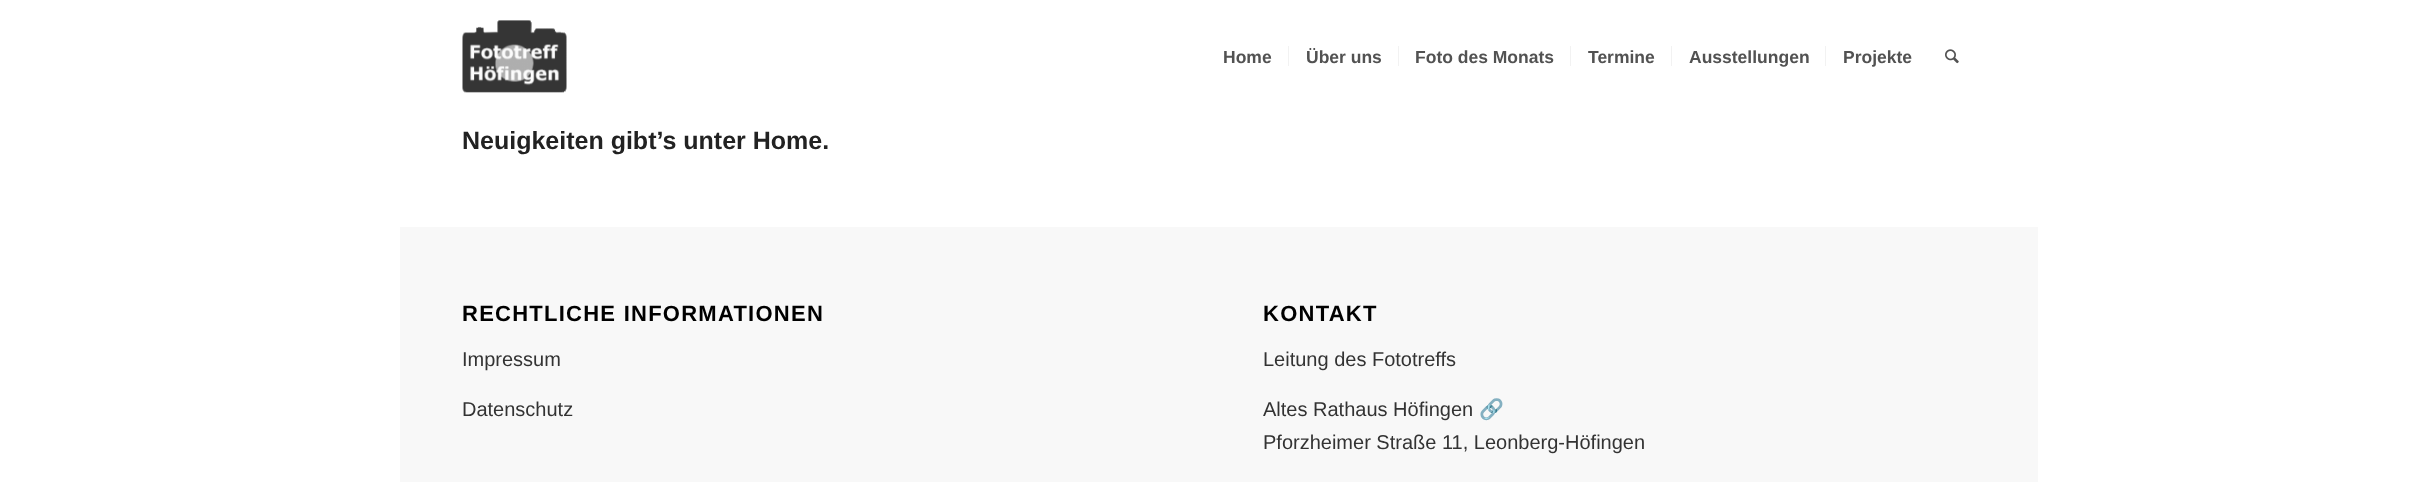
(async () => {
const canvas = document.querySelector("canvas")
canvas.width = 2436
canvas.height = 482
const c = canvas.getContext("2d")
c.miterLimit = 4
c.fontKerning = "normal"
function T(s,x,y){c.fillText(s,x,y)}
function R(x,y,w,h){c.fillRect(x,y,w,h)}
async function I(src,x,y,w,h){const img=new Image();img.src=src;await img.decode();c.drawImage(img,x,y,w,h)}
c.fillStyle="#fff"
R(0,0,2436,482)
await I("1.png",462,20,105,73)
c.font="bold 17.5px Liberation Sans"
c.fillStyle="#525252"
T("Home",1223,63)
T("Über uns",1306,63)
c.fillStyle="#f2f2f2"
R(1288,46,1,20)
c.fillStyle="#525252"
T("Foto des Monats",1415,63)
c.fillStyle="#f2f2f2"
R(1398,46,1,20)
c.fillStyle="#525252"
T("Termine",1588,63)
c.fillStyle="#f2f2f2"
R(1570,46,1,20)
c.fillStyle="#525252"
T("Ausstellungen",1689,63)
c.fillStyle="#f2f2f2"
R(1671,46,1,20)
c.fillStyle="#525252"
T("Projekte",1843,63)
c.fillStyle="#f2f2f2"
R(1825,46,1,20)
await I("2.png",1945,49,14,15)
c.font="bold 25px Liberation Sans"
c.fillStyle="#222"
T("Neuigkeiten gibt’s unter Home.",462,149)
c.fillStyle="#f8f8f8"
R(400,227,1638,255)
c.letterSpacing="1.25px"
c.font="bold 22px Liberation Sans"
c.fillStyle="#000"
T("RECHTLICHE INFORMATIONEN",462,321)
c.letterSpacing="0px"
c.font="20px Liberation Sans"
c.fillStyle="#333"
T("Impressum",462,366)
T("Datenschutz",462,416)
c.letterSpacing="1.25px"
c.font="bold 22px Liberation Sans"
c.fillStyle="#000"
T("KONTAKT",1263,321)
c.letterSpacing="0px"
c.font="20px Liberation Sans"
c.fillStyle="#333"
T("Leitung des Fototreffs",1263,366)
T("Altes Rathaus Höfingen",1263,416)
c.font="20px Noto Color Emoji"
T("🔗",1479,416)
c.font="20px Liberation Sans"
T("Pforzheimer Straße 11, Leonberg-Höfingen",1263,449)
})()
